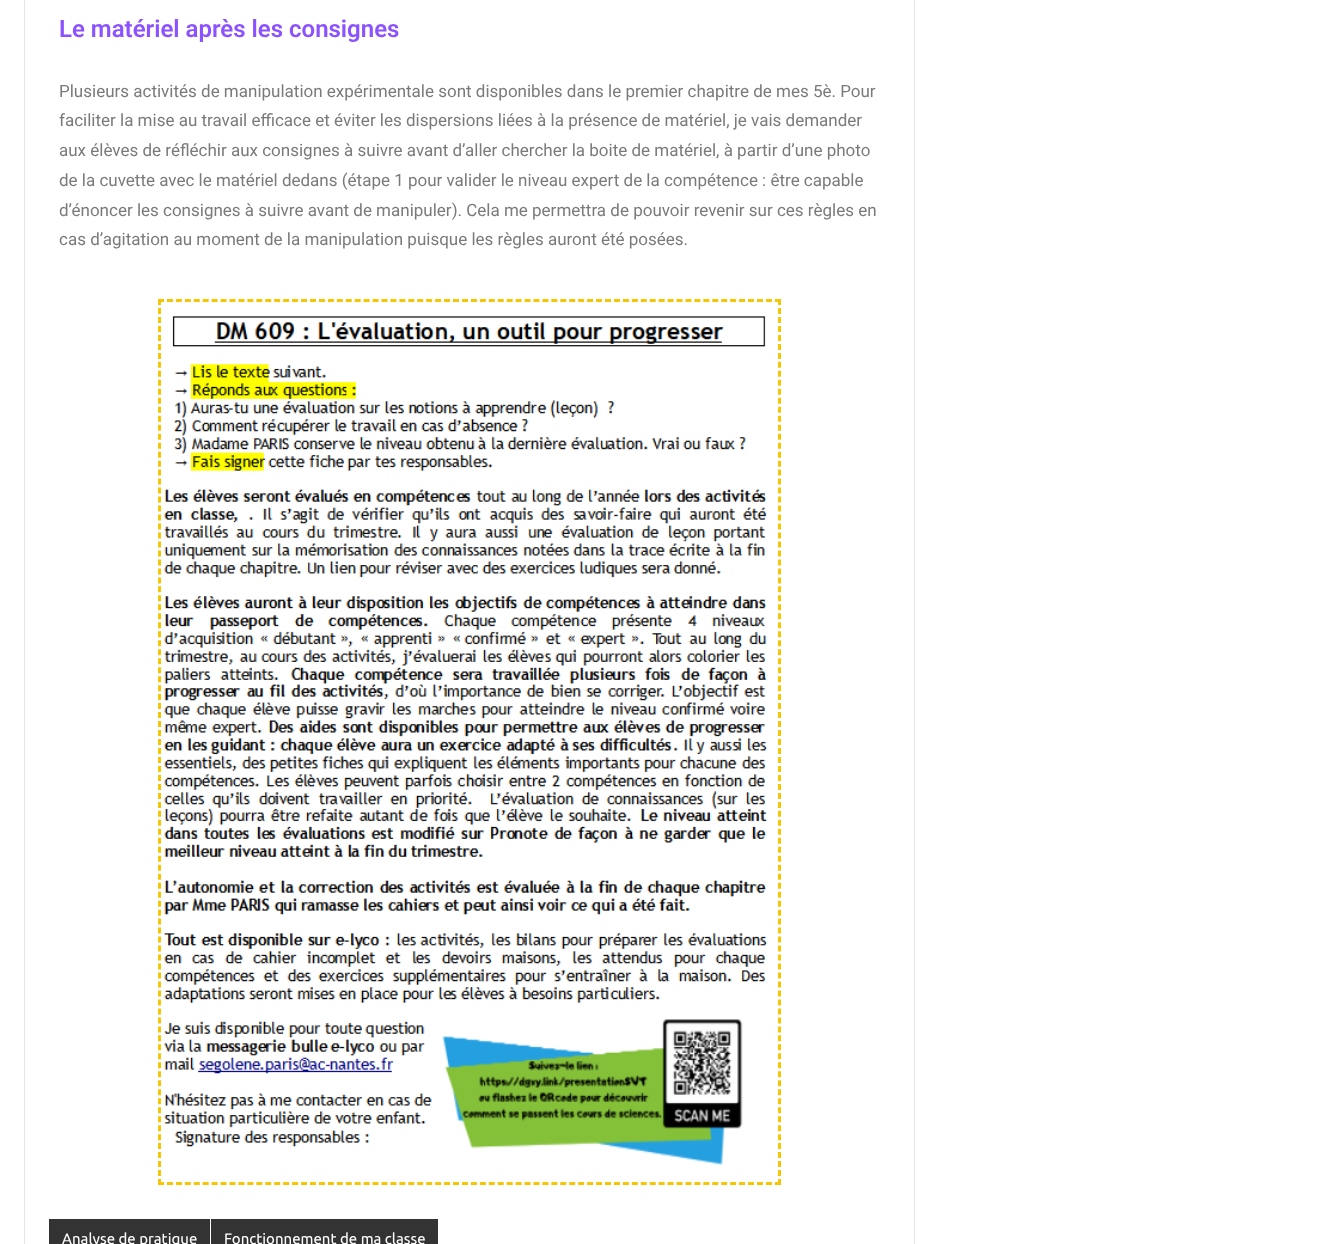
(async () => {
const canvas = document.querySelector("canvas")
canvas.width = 1321
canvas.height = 1244
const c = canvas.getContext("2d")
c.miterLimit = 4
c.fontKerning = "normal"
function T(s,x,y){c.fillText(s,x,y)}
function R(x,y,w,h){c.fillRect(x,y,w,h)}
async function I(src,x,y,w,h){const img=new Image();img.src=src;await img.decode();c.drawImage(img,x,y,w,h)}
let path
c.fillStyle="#fff"
R(0,0,1321,1244)
c.strokeStyle="#e6e6e6"
c.strokeRect(24.5,-.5,890,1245)
c.font="600 24px Roboto"
c.fillStyle="#8c52ff"
T("Le matériel après les consignes",59,37)
c.font="17px Roboto"
c.fillStyle="#7a7a7a"
T("Plusieurs activités de manipulation expérimentale sont disponibles dans le premier chapitre de mes 5è. Pour",59,97)
T("faciliter la mise au travail efficace et éviter les dispersions liées à la présence de matériel, je vais demander",59,126)
T("aux élèves de réfléchir aux consignes à suivre avant d’aller chercher la boite de matériel, à partir d’une photo",59,156)
T("de la cuvette avec le matériel dedans (étape 1 pour valider le niveau expert de la compétence : être capable",59,186)
T("d’énoncer les consignes à suivre avant de manipuler). Cela me permettra de pouvoir revenir sur ces règles en",59,216)
T("cas d’agitation au moment de la manipulation puisque les règles auront été posées.",59,245)
path = new Path2D("M158 300.5h623")
c.strokeStyle="#f4c604"
c.lineWidth=3
c.setLineDash([6,2.94])
c.stroke(path)
path = new Path2D("M779.5 299v886")
c.setLineDash([6,2.98])
c.stroke(path)
path = new Path2D("M158 1183.5h623")
c.setLineDash([6,2.94])
c.stroke(path)
path = new Path2D("M159.5 299v886")
c.setLineDash([6,2.98])
c.stroke(path)
await I("1.png",163,316,605,850)
c.fillStyle="#333"
R(49,1219,161,25)
c.font="15px Ubuntu"
c.fillStyle="#fff"
T("Analyse de pratique",62,1244)
c.fillStyle="#333"
R(211,1219,227,25)
c.fillStyle="#fff"
T("Fonctionnement de ma classe",224,1244)
})()
